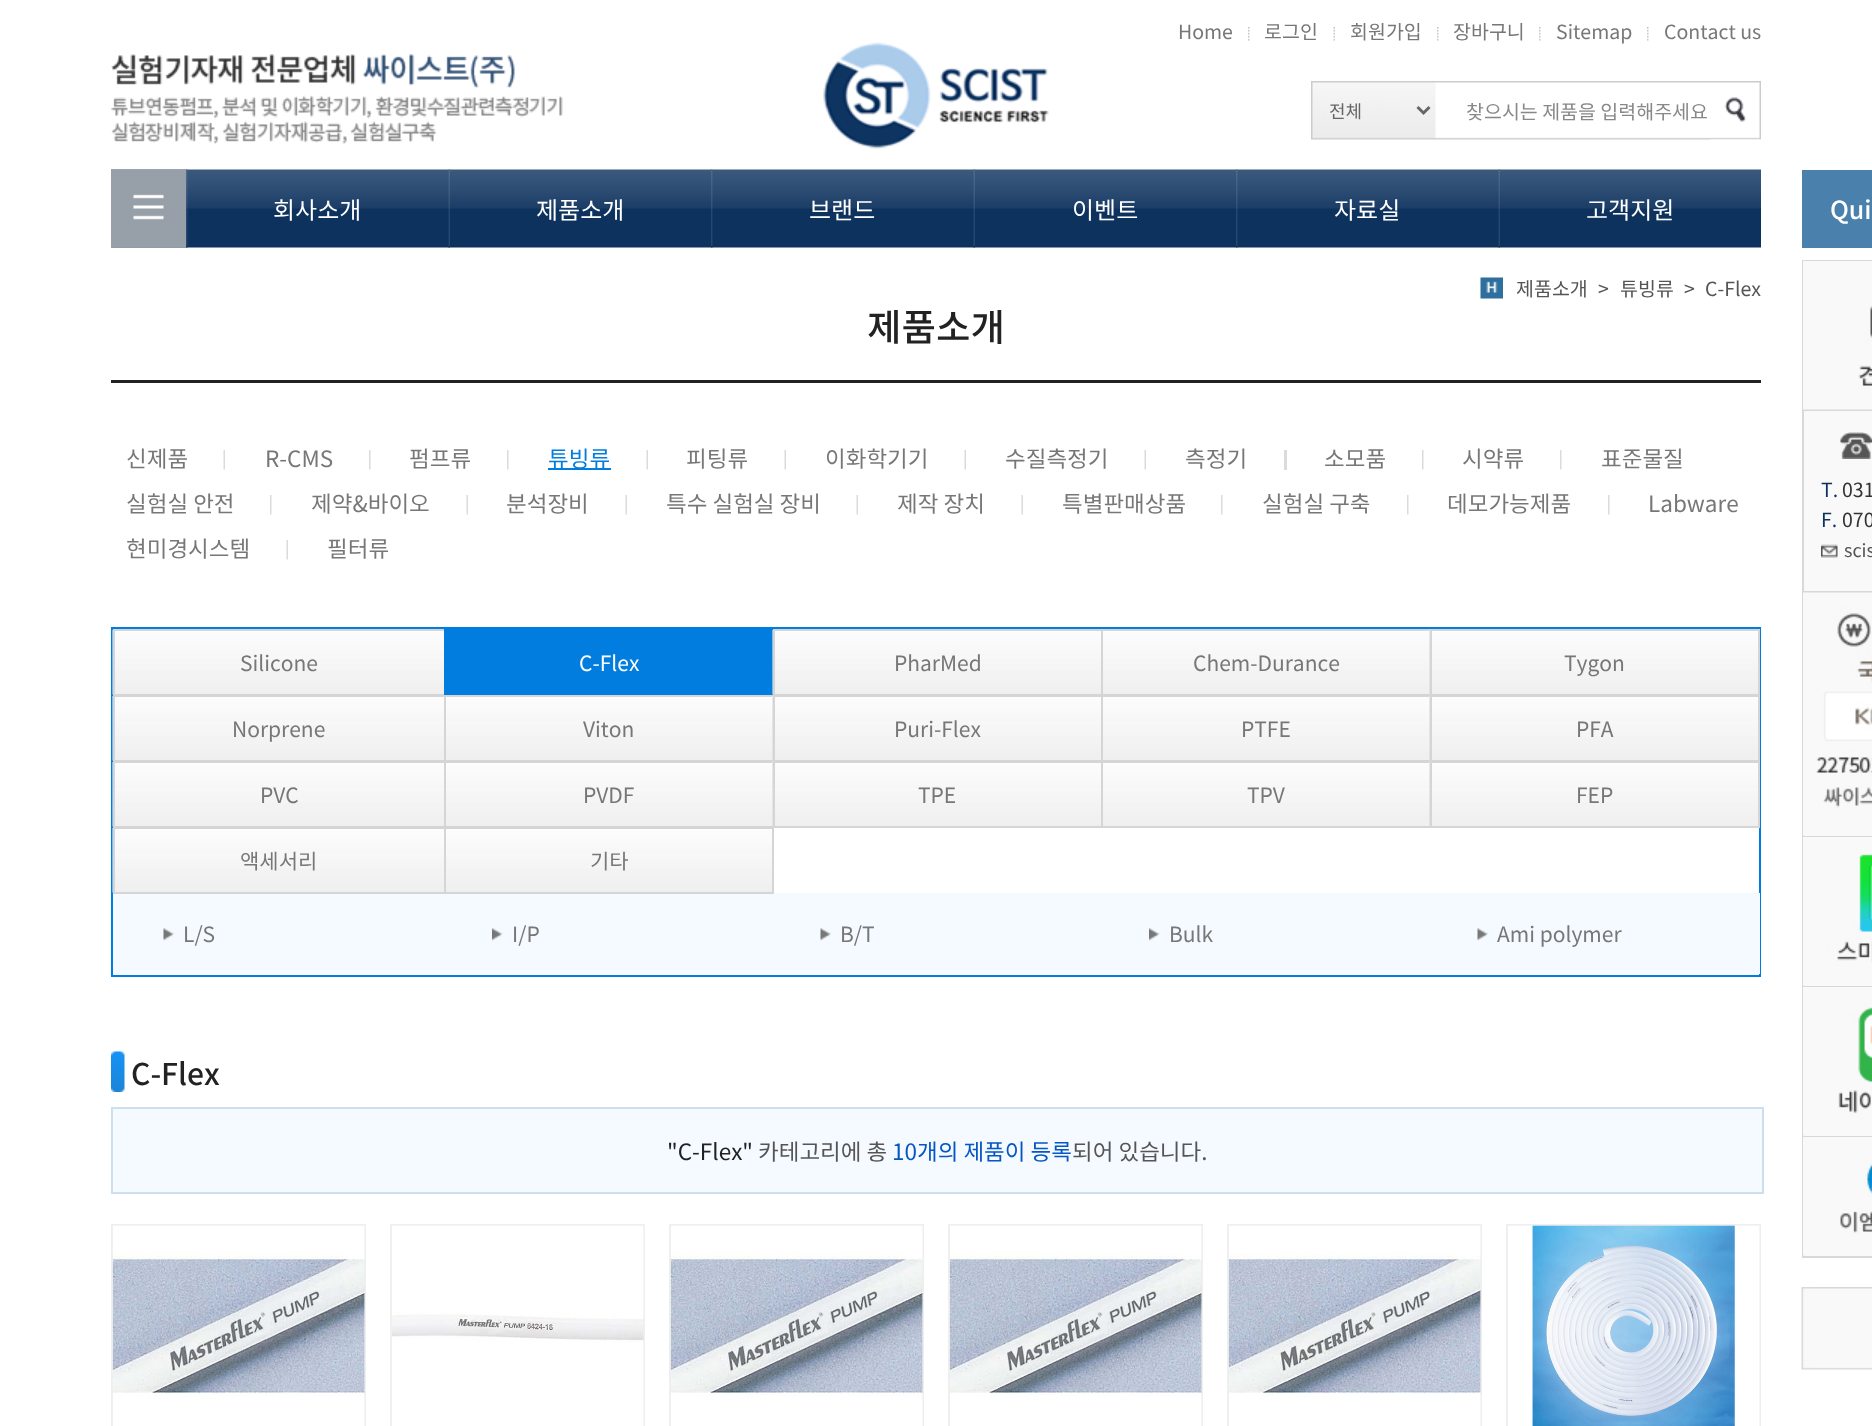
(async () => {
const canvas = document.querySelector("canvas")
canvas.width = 1872
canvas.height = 1426
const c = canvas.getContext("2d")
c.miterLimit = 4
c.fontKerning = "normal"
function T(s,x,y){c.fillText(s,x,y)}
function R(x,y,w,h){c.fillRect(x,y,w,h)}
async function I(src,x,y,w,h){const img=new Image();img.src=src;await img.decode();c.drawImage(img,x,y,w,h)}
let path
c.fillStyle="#fff"
R(0,0,1872,1426)
await I("1.png",111,169,1650,79)
c.font="19.5px Noto Sans KR"
c.fillStyle="#777"
T("Home",1178,39)
await I("2.png",1248,27,2,14)
T("로그인",1264,39)
await I("3.png",1333,27,2,14)
T("회원가입",1350,39)
await I("2.png",1437,27,2,14)
T("장바구니",1453,39)
await I("2.png",1539,27,2,14)
T("Sitemap",1556,39)
await I("2.png",1647,27,2,14)
T("Contact us",1664,39)
await I("4.png",111,54,452,90)
await I("5.png",823,42,226,107)
await I("6.png",1311,81,399,59)
path = new Path2D("M1417.5 107l6 6l6-6")
c.strokeStyle="#666"
c.lineWidth=3
c.stroke(path)
c.font="18px Noto Sans KR"
c.fillStyle="#666"
T("전체",1329,118)
c.font="19.5px Noto Sans KR"
c.fillStyle="#888"
T("찾으시는 제품을 입력해주세요",1466,119)
await I("7.png",1710,81,51,59)
await I("8.png",111,169,75,79)
await I("9.png",186,169,2,79)
c.font="24px Noto Sans KR"
c.fillStyle="#fff"
T("회사소개",273,219)
await I("10.png",448,169,2,79)
T("제품소개",536,219)
await I("9.png",711,169,2,79)
T("브랜드",809,219)
await I("10.png",973,169,2,79)
T("이벤트",1072,219)
await I("9.png",1236,169,2,79)
T("자료실",1334,219)
await I("10.png",1498,169,2,79)
T("고객지원",1586,219)
c.fillStyle="#222"
R(111,380,1650,3)
await I("11.png",1480,277,23,22)
c.font="19.5px Noto Sans KR"
c.fillStyle="#555"
T("제품소개",1516,296)
T(">",1598,296)
T("튜빙류",1620,296)
T(">",1684,296)
T("C-Flex",1705,296)
c.font="500 37.5px Noto Sans KR"
c.fillStyle="#222"
T("제품소개",867,341)
c.font="22.5px Noto Sans KR"
c.fillStyle="#777"
T("신제품",126,467)
await I("12.png",223,450,2,20)
T("R-CMS",265,467)
await I("13.png",369,450,2,20)
T("펌프류",409,467)
await I("13.png",507,450,2,20)
c.fillStyle="#007dde"
R(548,468,63,2)
T("튜빙류",548,467)
await I("12.png",646,450,2,20)
c.fillStyle="#777"
T("피팅류",686,467)
await I("12.png",784,450,2,20)
T("이화학기기",825,467)
await I("12.png",964,450,2,20)
T("수질측정기",1005,467)
await I("12.png",1144,450,2,20)
T("측정기",1185,467)
c.fillStyle="#dbdbdb"
R(1284,450,3,20)
c.fillStyle="#777"
T("소모품",1324,467)
await I("13.png",1422,450,2,20)
T("시약류",1462,467)
await I("13.png",1560,450,2,20)
T("표준물질",1601,467)
T("실험실 안전",126,512)
await I("13.png",270,495,2,20)
T("제약&바이오",311,512)
await I("12.png",466,495,2,20)
T("분석장비",506,512)
await I("12.png",625,495,2,20)
T("특수 실험실 장비",666,512)
await I("12.png",856,495,2,20)
T("제작 장치",897,512)
await I("12.png",1021,495,2,20)
T("특별판매상품",1062,512)
await I("13.png",1221,495,2,20)
T("실험실 구축",1262,512)
await I("13.png",1407,495,2,20)
T("데모가능제품",1447,512)
await I("13.png",1608,495,2,20)
T("Labware",1648,512)
T("현미경시스템",126,557)
await I("12.png",286,540,2,20)
T("필터류",327,557)
c.strokeStyle="#007dde"
c.lineWidth=2
c.strokeRect(112,628,1648,348)
await I("14.png",112,630,332,65)
c.strokeStyle="#d5d5d5"
c.strokeRect(114,630,331,65)
c.font="21px Noto Sans KR"
T("Silicone",240,671)
c.fillStyle="#007dde"
R(444,629,329,66)
c.fillStyle="#fff"
T("C-Flex",579,671)
await I("15.png",772,630,329,65)
c.strokeRect(774,630,328,65)
c.fillStyle="#777"
T("PharMed",894,671)
await I("16.png",1103,631,326,63)
c.strokeRect(1102,630,328,65)
T("Chem-Durance",1193,671)
await I("17.png",1429,630,329,65)
c.strokeRect(1431,630,328,65)
T("Tygon",1564,671)
await I("14.png",112,696,332,65)
c.strokeRect(114,696,331,65)
T("Norprene",232,737)
await I("16.png",446,697,326,63)
c.strokeRect(445,696,328,65)
T("Viton",583,737)
await I("17.png",772,696,329,65)
c.strokeRect(774,696,328,65)
T("Puri-Flex",894,737)
await I("16.png",1103,697,326,63)
c.strokeRect(1102,696,328,65)
T("PTFE",1241,737)
await I("17.png",1429,696,329,65)
c.strokeRect(1431,696,328,65)
T("PFA",1576,737)
await I("14.png",112,762,332,65)
c.strokeRect(114,762,331,65)
T("PVC",260,803)
await I("16.png",446,763,326,63)
c.strokeRect(445,762,328,65)
T("PVDF",583,803)
await I("17.png",772,762,329,65)
c.strokeRect(774,762,328,65)
T("TPE",918,803)
await I("16.png",1103,763,326,63)
c.strokeRect(1102,762,328,65)
T("TPV",1247,803)
await I("17.png",1429,762,329,65)
c.strokeRect(1431,762,328,65)
T("FEP",1576,803)
await I("14.png",112,828,332,65)
c.fillStyle="#f4faff"
R(113,893,1647,81)
c.strokeRect(114,828,331,65)
c.fillStyle="#777"
T("액세서리",240,869)
await I("16.png",446,829,326,63)
c.strokeRect(445,828,328,65)
T("기타",590,869)
await I("18.png",163,928,11,13)
T("L/S",183,942)
await I("19.png",492,928,11,13)
T("I/P",512,942)
await I("18.png",820,928,11,13)
T("B/T",840,942)
await I("19.png",1149,928,11,13)
T("Bulk",1169,942)
await I("20.png",1477,928,11,13)
T("Ami polymer",1497,942)
await I("21.png",111,1051,14,41)
c.font="500 30px Noto Sans KR"
c.fillStyle="#222"
T("C-Flex",131,1085)
c.fillStyle="#f4faff"
c.beginPath()
c.rect(112,1108,1651,85)
c.fill()
c.strokeStyle="#cddeec"
c.stroke()
c.font="22.5px Noto Sans KR"
c.fillStyle="#222"
T("\"C-Flex\"",667,1160)
c.fillStyle="#555"
T("카테고리에 총",758,1160)
c.fillStyle="#0656c3"
T("10개의 제품이 등록",892,1160)
c.fillStyle="#555"
T("되어 있습니다.",1072,1160)
c.strokeStyle="#efefef"
c.strokeRect(112,1225,253,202)
await I("22.png",112,1225,253,201)
c.strokeRect(391,1225,253,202)
await I("23.png",392,1225,252,201)
c.strokeRect(670,1225,253,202)
await I("22.png",670,1225,253,201)
c.strokeRect(949,1225,253,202)
await I("22.png",949,1225,253,201)
c.strokeRect(1228,1225,253,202)
await I("24.png",1228,1225,253,201)
c.strokeRect(1507,1225,253,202)
await I("25.png",1508,1225,252,201)
c.fillStyle="#4a80ac"
R(1802,170,70,78)
c.font="500 25px Noto Sans KR"
c.fillStyle="#fff"
T("Qui",1830,219)
c.strokeStyle="#d6d9dc"
c.strokeRect(1803,261,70,149)
await I("26.png",1803,261,69,149)
c.fillStyle="#f9f9f9"
R(1804,411,68,180)
c.fillStyle="#d6d9dc"
R(1802,591,70,2)
R(1802,411,2,182)
await I("27.png",1840,432,32,27)
c.font="19.5px Noto Sans KR"
c.fillStyle="#0d325e"
T("T.",1821,497)
c.fillStyle="#333"
T("031",1842,497)
c.fillStyle="#0d325e"
T("F.",1821,527)
c.fillStyle="#333"
T("070",1842,527)
await I("28.png",1821,544,17,14)
c.font="18px Noto Sans KR"
c.fillStyle="#555"
T("scis",1844,557)
c.fillStyle="#f9f9f9"
R(1804,835,68,1)
c.fillStyle="#d6d9dc"
R(1802,836,70,1)
R(1802,593,2,244)
await I("29.png",1803,592,69,244)
c.fillStyle="#f9f9f9"
R(1804,985,68,1)
c.fillStyle="#d6d9dc"
R(1802,986,70,1)
R(1802,837,2,150)
await I("30.png",1803,837,69,149)
c.fillStyle="#f9f9f9"
R(1804,1135,68,1)
c.fillStyle="#d6d9dc"
R(1802,1136,70,1)
R(1802,987,2,150)
await I("31.png",1803,987,69,149)
c.fillStyle="#f9f9f9"
R(1804,1255,68,1)
c.fillStyle="#d6d9dc"
R(1802,1256,70,2)
R(1802,1137,2,120)
await I("32.png",1803,1137,69,119)
await I("33.png",1801,1287,71,83)
})()
